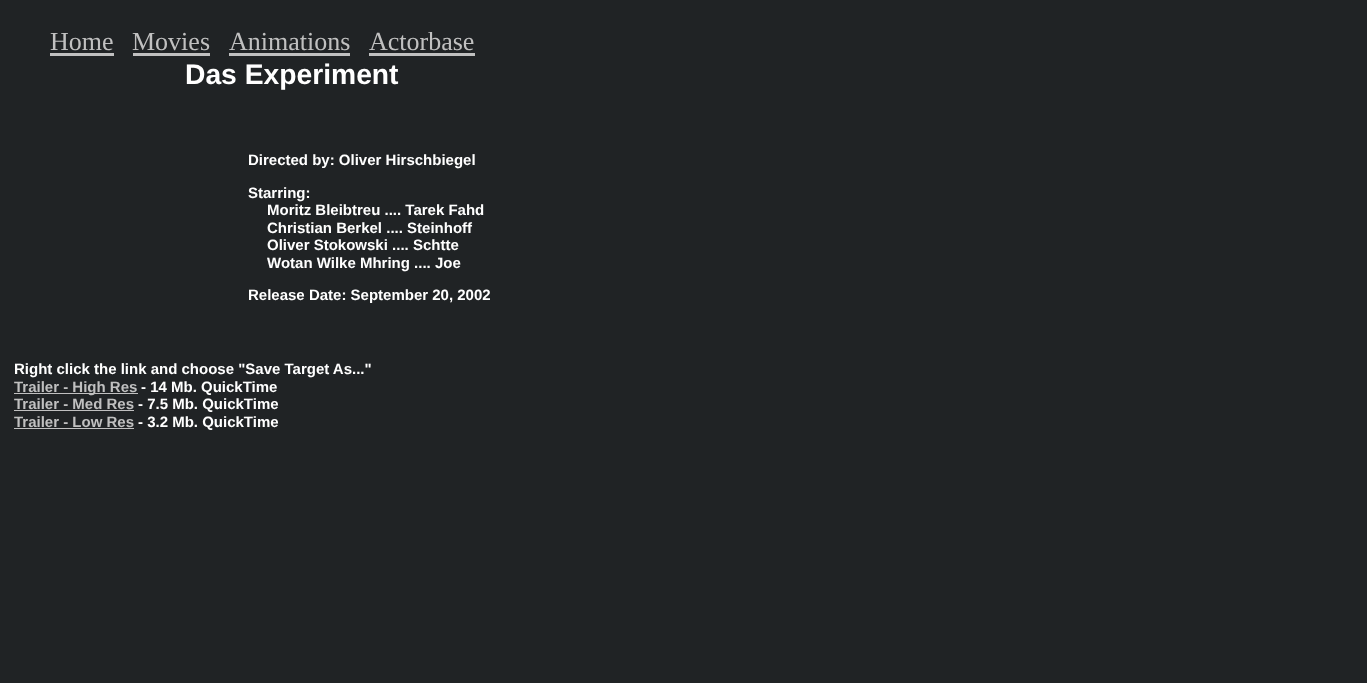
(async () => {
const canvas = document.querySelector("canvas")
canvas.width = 1367
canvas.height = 683
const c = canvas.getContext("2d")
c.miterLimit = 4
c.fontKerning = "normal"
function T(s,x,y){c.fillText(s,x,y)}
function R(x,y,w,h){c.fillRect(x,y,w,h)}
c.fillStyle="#202325"
R(0,0,1367,683)
c.font="26px Liberation Serif"
c.fillStyle="#c0c0c0"
T("Home",50,50)
R(50,53,64,3)
T("Movies",132,50)
R(133,53,77,3)
T("Animations",229,50)
R(229,53,121,3)
T("Actorbase",369,50)
R(369,53,106,3)
c.font="bold 28.25px Liberation Sans"
c.fillStyle="#fff"
T("Das Experiment",185,84)
c.font="bold 15px Liberation Sans"
T("Directed by: Oliver Hirschbiegel",248,165)
T("Starring:",248,198)
T("Moritz Bleibtreu .... Tarek Fahd",267,215)
T("Christian Berkel .... Steinhoff",267,233)
T("Oliver Stokowski .... Schtte",267,250)
T("Wotan Wilke Mhring .... Joe",267,268)
T("Release Date: September 20, 2002",248,300)
T("Right click the link and choose \"Save Target As...\"",14,374)
c.fillStyle="#c0c0c0"
R(14,393,124,1)
T("Trailer - High Res",14,392)
c.fillStyle="#fff"
T("- 14 Mb. QuickTime",141,392)
c.fillStyle="#c0c0c0"
T("Trailer - Med Res",14,409)
R(14,410,120,1)
c.fillStyle="#fff"
T("- 7.5 Mb. QuickTime",138,409)
c.fillStyle="#c0c0c0"
T("Trailer - Low Res",14,427)
R(14,428,120,1)
c.fillStyle="#fff"
T("- 3.2 Mb. QuickTime",138,427)
})()
